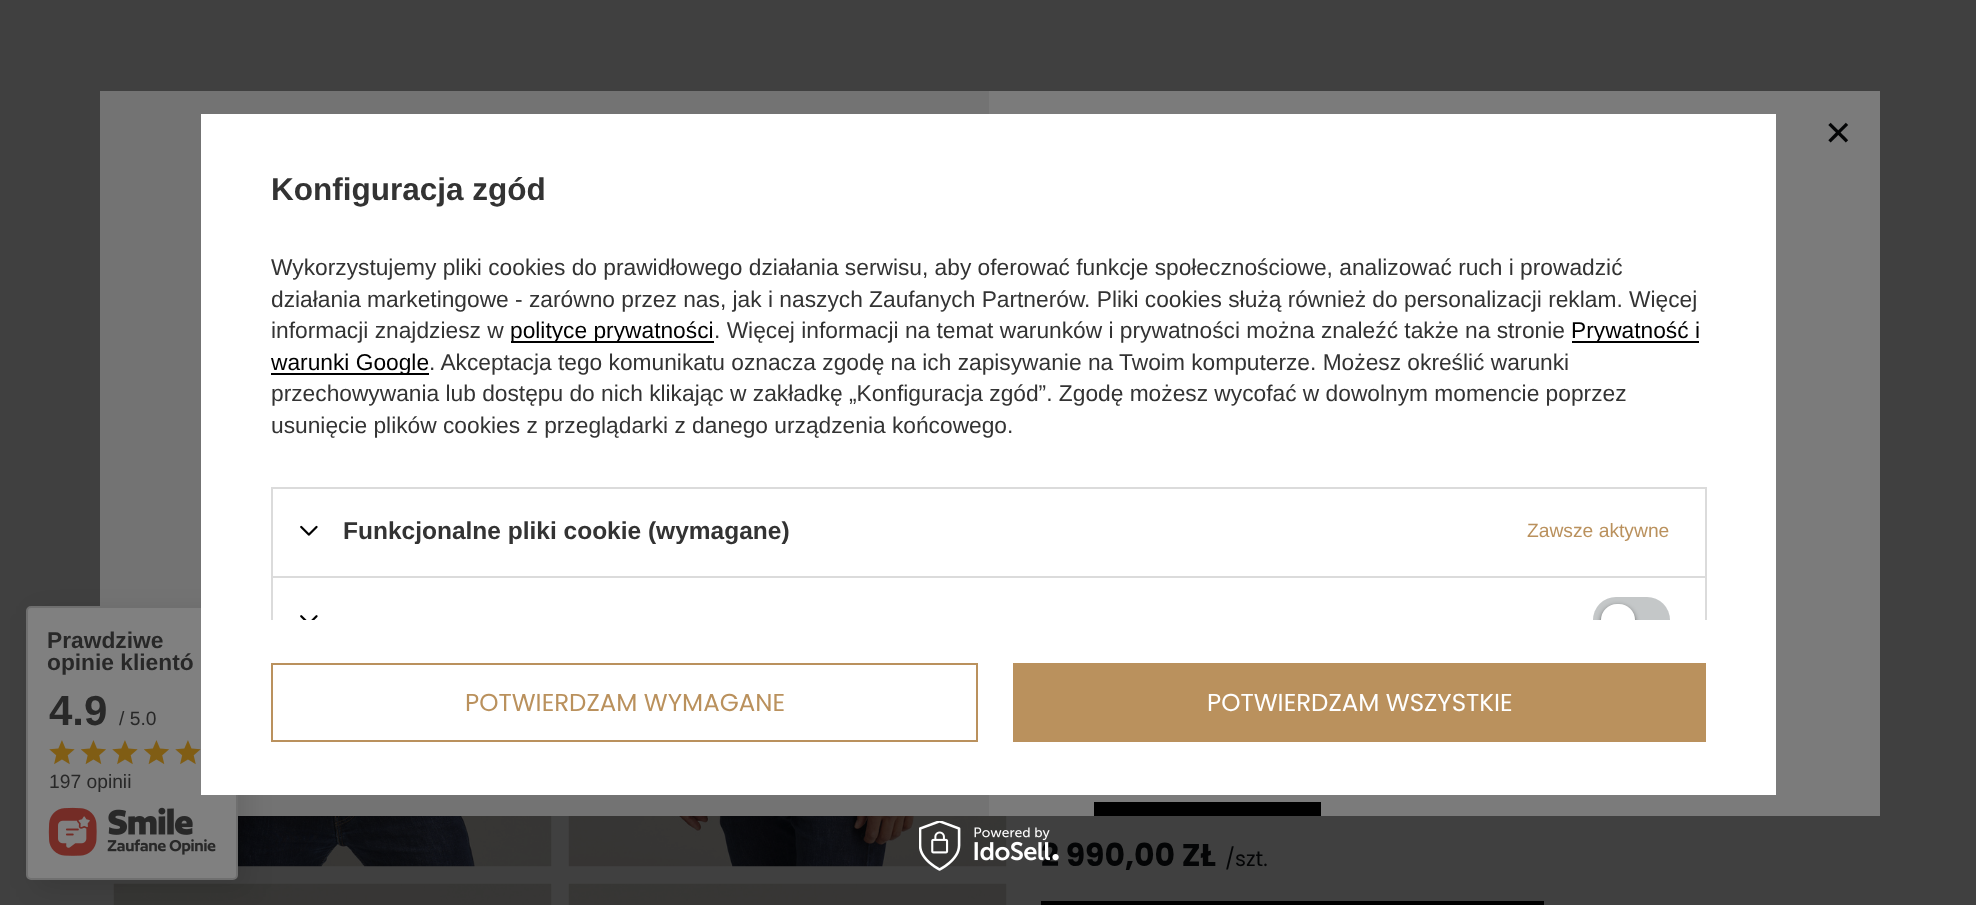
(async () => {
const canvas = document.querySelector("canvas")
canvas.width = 1976
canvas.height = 905
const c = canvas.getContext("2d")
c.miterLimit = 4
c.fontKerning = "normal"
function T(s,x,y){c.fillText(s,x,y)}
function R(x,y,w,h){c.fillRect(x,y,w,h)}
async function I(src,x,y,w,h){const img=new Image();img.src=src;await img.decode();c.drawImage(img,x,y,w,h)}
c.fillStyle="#404040"
R(0,0,1976,905)
c.fillStyle="#7b7b7b"
R(989,91,891,725)
c.fillStyle="#737373"
R(100,91,889,725)
c.font="34px DejaVu Sans"
c.fillStyle="#040506"
T("✕",1824,145)
c.fillStyle="#000"
R(1094,802,227,14)
await I("1.png",238,816,314,51)
await I("2.png",568,816,439,51)
await I("3.png",113,883,439,22)
await I("4.png",568,883,439,22)
c.font="bold 31.5px Poppins"
c.fillStyle="#040506"
T("2 990,00 ZŁ",1041,866)
c.font="21px Poppins"
T("/szt.",1225,866)
c.fillStyle="#000"
R(1041,901,503,4)
c.fillStyle="#0000001a"
c.filter="blur(13px)"
c.beginPath()
c.roundRect(35,614,212,275,5)
c.fill()
c.filter="none"
c.fillStyle="#808080"
c.beginPath()
c.roundRect(27,607,210,272,4)
c.fill()
c.strokeStyle="#6f6f6f"
c.lineWidth=2
c.stroke()
c.font="bold 22.75px Liberation Sans"
c.fillStyle="#282828"
T("Prawdziwe",47,648)
T("opinie klientó",47,670)
c.font="bold 42px Liberation Sans"
T("4.9",49,725)
c.font="19.25px Liberation Sans"
T("/ 5.0",119,725)
await I("5.png",49,740,26,25)
await I("6.png",81,740,25,25)
await I("5.png",112,740,26,25)
await I("6.png",144,740,25,25)
await I("5.png",175,740,26,25)
T("197 opinii",49,788)
await I("7.png",48,807,168,49)
c.fillStyle="#fff"
R(201,114,1575,681)
c.font="bold 31.5px Liberation Sans"
c.fillStyle="#333"
T("Konfiguracja zgód",271,200)
c.font="22.75px Liberation Sans"
T("Wykorzystujemy pliki cookies do prawidłowego działania serwisu, aby oferować funkcje społecznościowe, analizować ruch i prowadzić",271,275)
T("działania marketingowe - zarówno przez nas, jak i naszych Zaufanych Partnerów. Pliki cookies służą również do personalizacji reklam. Więcej",271,307)
T("informacji znajdziesz w",271,338)
c.fillStyle="#000"
R(511,341,203,2)
T("polityce prywatności",510,338)
c.fillStyle="#333"
T(". Więcej informacji na temat warunków i prywatności można znaleźć także na stronie",714,338)
c.fillStyle="#000"
R(1572,341,127,2)
T("Prywatność i",1571,338)
R(271,373,158,2)
T("warunki Google",271,370)
c.fillStyle="#333"
T(". Akceptacja tego komunikatu oznacza zgodę na ich zapisywanie na Twoim komputerze. Możesz określić warunki",429,370)
T("przechowywania lub dostępu do nich klikając w zakładkę „Konfiguracja zgód”. Zgodę możesz wycofać w dowolnym momencie poprzez",271,401)
T("usunięcie plików cookies z przeglądarki z danego urządzenia końcowego.",271,433)
c.fillStyle="#dbdbdb"
R(271,487,1435,2)
R(1705,487,2,89)
R(271,487,2,89)
await I("8.png",300,525,18,11)
c.font="bold 24.5px Liberation Sans"
c.fillStyle="#333"
T("Funkcjonalne pliki cookie (wymagane)",343,539)
c.font="19.25px Liberation Sans"
c.fillStyle="#ba915d"
T("Zawsze aktywne",1527,537)
c.fillStyle="#dbdbdb"
R(271,576,1435,2)
R(1705,576,2,44)
R(271,576,2,44)
await I("9.png",300,615,18,5)
c.fillStyle="#c4c7c8"
c.beginPath()
c.roundRect(1593,597,77,23,[23.5,23.5,0,0])
c.fill()
c.save()
c.beginPath()
c.rect(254,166,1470,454)
c.clip()
c.fillStyle="#0000008f"
c.filter="blur(2.5px)"
c.beginPath()
c.roundRect(1601,606,34,33,16.5)
c.fill()
c.filter="none"
c.restore()
c.fillStyle="#fff"
c.beginPath()
c.roundRect(1601,604,34,16,[16.5,16.5,0,0])
c.fill()
c.strokeStyle="#ba915d"
c.strokeRect(272,664,705,77)
c.font="24.5px Poppins"
c.fillStyle="#ba915d"
T("POTWIERDZAM WYMAGANE",465,711)
R(1013,663,693,79)
c.fillStyle="#fff"
T("POTWIERDZAM WSZYSTKIE",1207,711)
await I("10.png",919,821,140,50)
})()
